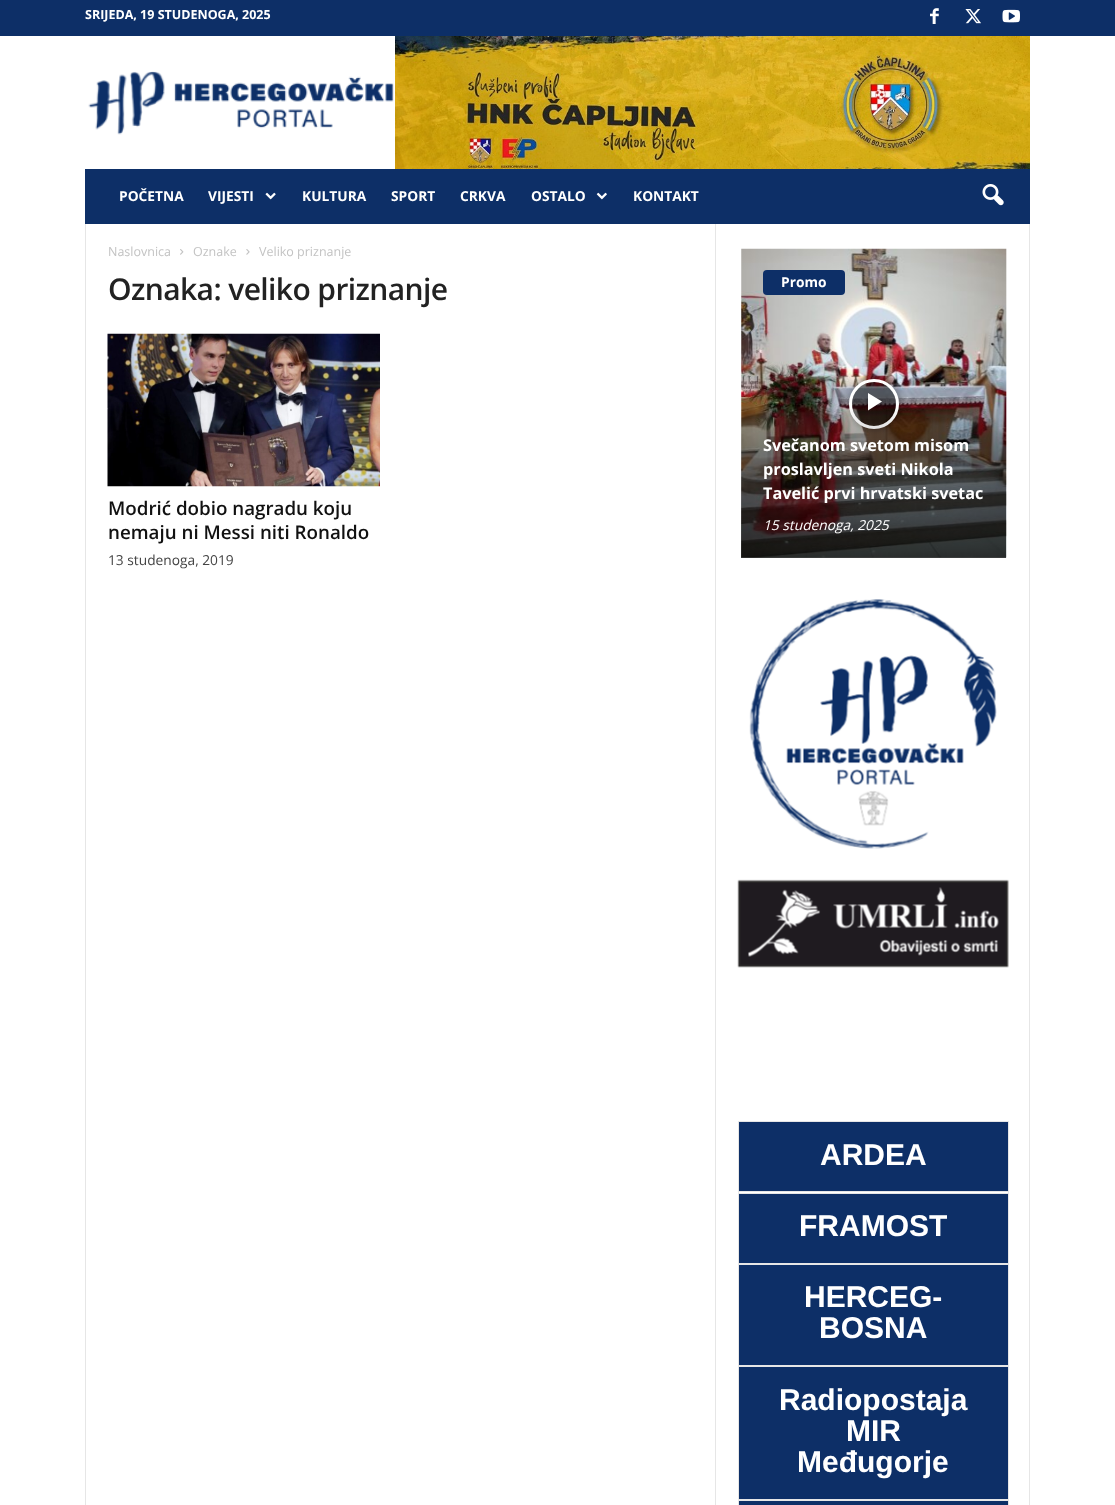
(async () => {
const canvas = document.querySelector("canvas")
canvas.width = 1115
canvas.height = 1505
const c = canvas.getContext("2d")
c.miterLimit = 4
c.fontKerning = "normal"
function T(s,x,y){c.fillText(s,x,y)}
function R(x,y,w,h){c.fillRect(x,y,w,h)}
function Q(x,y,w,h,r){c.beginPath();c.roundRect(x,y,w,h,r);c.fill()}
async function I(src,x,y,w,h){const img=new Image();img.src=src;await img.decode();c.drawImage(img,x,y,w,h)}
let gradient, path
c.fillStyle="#fff"
R(0,0,1115,1505)
c.fillStyle="#0d2f67"
R(0,0,1115,36)
c.font="bold 12.5px Open Sans"
c.fillStyle="#fff"
T("SRIJEDA, 19 STUDENOGA, 2025",85,19)
await I("1.png",930,8,9,16)
await I("2.png",965,9,16,15)
await I("3.png",1002,9,18,14)
await I("4.png",88,71,306,64)
await I("5.png",395,36,635,133)
c.fillStyle="#0d2f67"
R(85,169,945,55)
c.font="bold 13.75px Open Sans"
c.fillStyle="#fff"
T("POČETNA",119,201)
T("VIJESTI",208,201)
await I("6.png",265,192,11,8)
T("KULTURA",302,201)
T("SPORT",391,201)
T("CRKVA",460,201)
T("OSTALO",531,201)
await I("7.png",596,192,11,8)
T("KONTAKT",633,201)
await I("8.png",982,184,22,22)
c.fillStyle="#e6e6e6"
R(85,224,1,1281)
c.font="12.5px Open Sans"
c.fillStyle="#c3c3c3"
T("Naslovnica",108,256)
await I("9.png",180,249,4,6)
T("Oznake",193,256)
await I("10.png",246,249,4,6)
T("Veliko priznanje",259,256)
c.letterSpacing="-0.6px"
c.font="600 30px Open Sans"
c.fillStyle="#222"
T("Oznaka: veliko priznanje",108,300)
await I("11.png",107,333,273,154)
c.letterSpacing="0px"
c.font="600 18.75px Open Sans"
c.fillStyle="#111"
T("Modrić dobio nagradu koju",108,515)
T("nemaju ni Messi niti Ronaldo",108,539)
c.font="13.75px Open Sans"
c.fillStyle="#444"
T("13 studenoga, 2019",108,565)
c.fillStyle="#e6e6e6"
R(715,224,1,1281)
await I("12.png",741,248,266,310)
c.fillStyle="#0d2f67"
Q(763,270,82,25,4)
c.font="bold 13.75px Open Sans"
c.fillStyle="#fff"
T("Promo",781,287)
c.save()
path = new Path2D("M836 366h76v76h-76zm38 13c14 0 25 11 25 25c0 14-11 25-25 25c-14 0-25-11-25-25c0-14 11-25 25-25z")
c.clip(path,"evenodd")
c.fillStyle="#00000066"
c.filter="blur(4px)"
c.beginPath()
c.roundRect(849,379,50,50,25)
c.fill()
c.filter="none"
c.restore()
c.fillStyle="#0000007a"
c.beginPath()
c.arc(874,404,23.5,0,7)
c.fill()
c.strokeStyle="#fff"
c.lineWidth=3
c.stroke()
c.fillStyle="#fff"
path = new Path2D("M868 393v17.5l14-9z")
c.fill(path)
gradient = c.createLinearGradient(874,404,874,558)
gradient.addColorStop(0,"#00000000")
gradient.addColorStop(1,"#000000b3")
c.fillStyle = gradient
R(741,409,265,149)
c.font="bold 16.25px Open Sans"
c.fillStyle="#fff"
T("Svečanom svetom misom",763,451)
T("proslavljen sveti Nikola",763,475)
T("Tavelić prvi hrvatski svetac",763,499)
c.font="italic 13.75px Open Sans"
T("15 studenoga, 2025",763,530)
await I("13.png",749,599,248,250)
await I("14.png",737,879,272,89)
c.fillStyle="#0d2f67"
R(739,1122,269,69)
c.fillStyle="#e6e6e6"
R(738,1121,271,1)
R(1008,1121,1,72)
R(738,1191,271,1)
R(738,1121,1,72)
c.font="bold 30px Liberation Sans"
c.fillStyle="#fff"
T("ARDEA",820,1165)
c.fillStyle="#0d2f67"
R(739,1194,269,69)
c.fillStyle="#e6e6e6"
R(738,1193,271,1)
R(1008,1193,1,71)
R(738,1263,271,2)
R(738,1193,1,71)
c.fillStyle="#fff"
T("FRAMOST",799,1236)
c.fillStyle="#0d2f67"
R(739,1265,269,100)
c.fillStyle="#e6e6e6"
R(1008,1264,1,102)
R(738,1365,271,2)
R(738,1264,1,102)
c.fillStyle="#fff"
T("HERCEG-",804,1307)
T("BOSNA",819,1338)
c.fillStyle="#0d2f67"
R(739,1367,269,132)
c.fillStyle="#e6e6e6"
R(1008,1366,1,134)
R(738,1499,271,2)
R(738,1366,1,139)
c.fillStyle="#fff"
T("Radiopostaja",779,1410)
T("MIR",846,1441)
T("Međugorje",797,1472)
c.fillStyle="#0d2f67"
R(739,1501,270,4)
c.fillStyle="#e6e6e6"
R(1008,1500,1,5)
R(1029,224,1,1281)
})()
